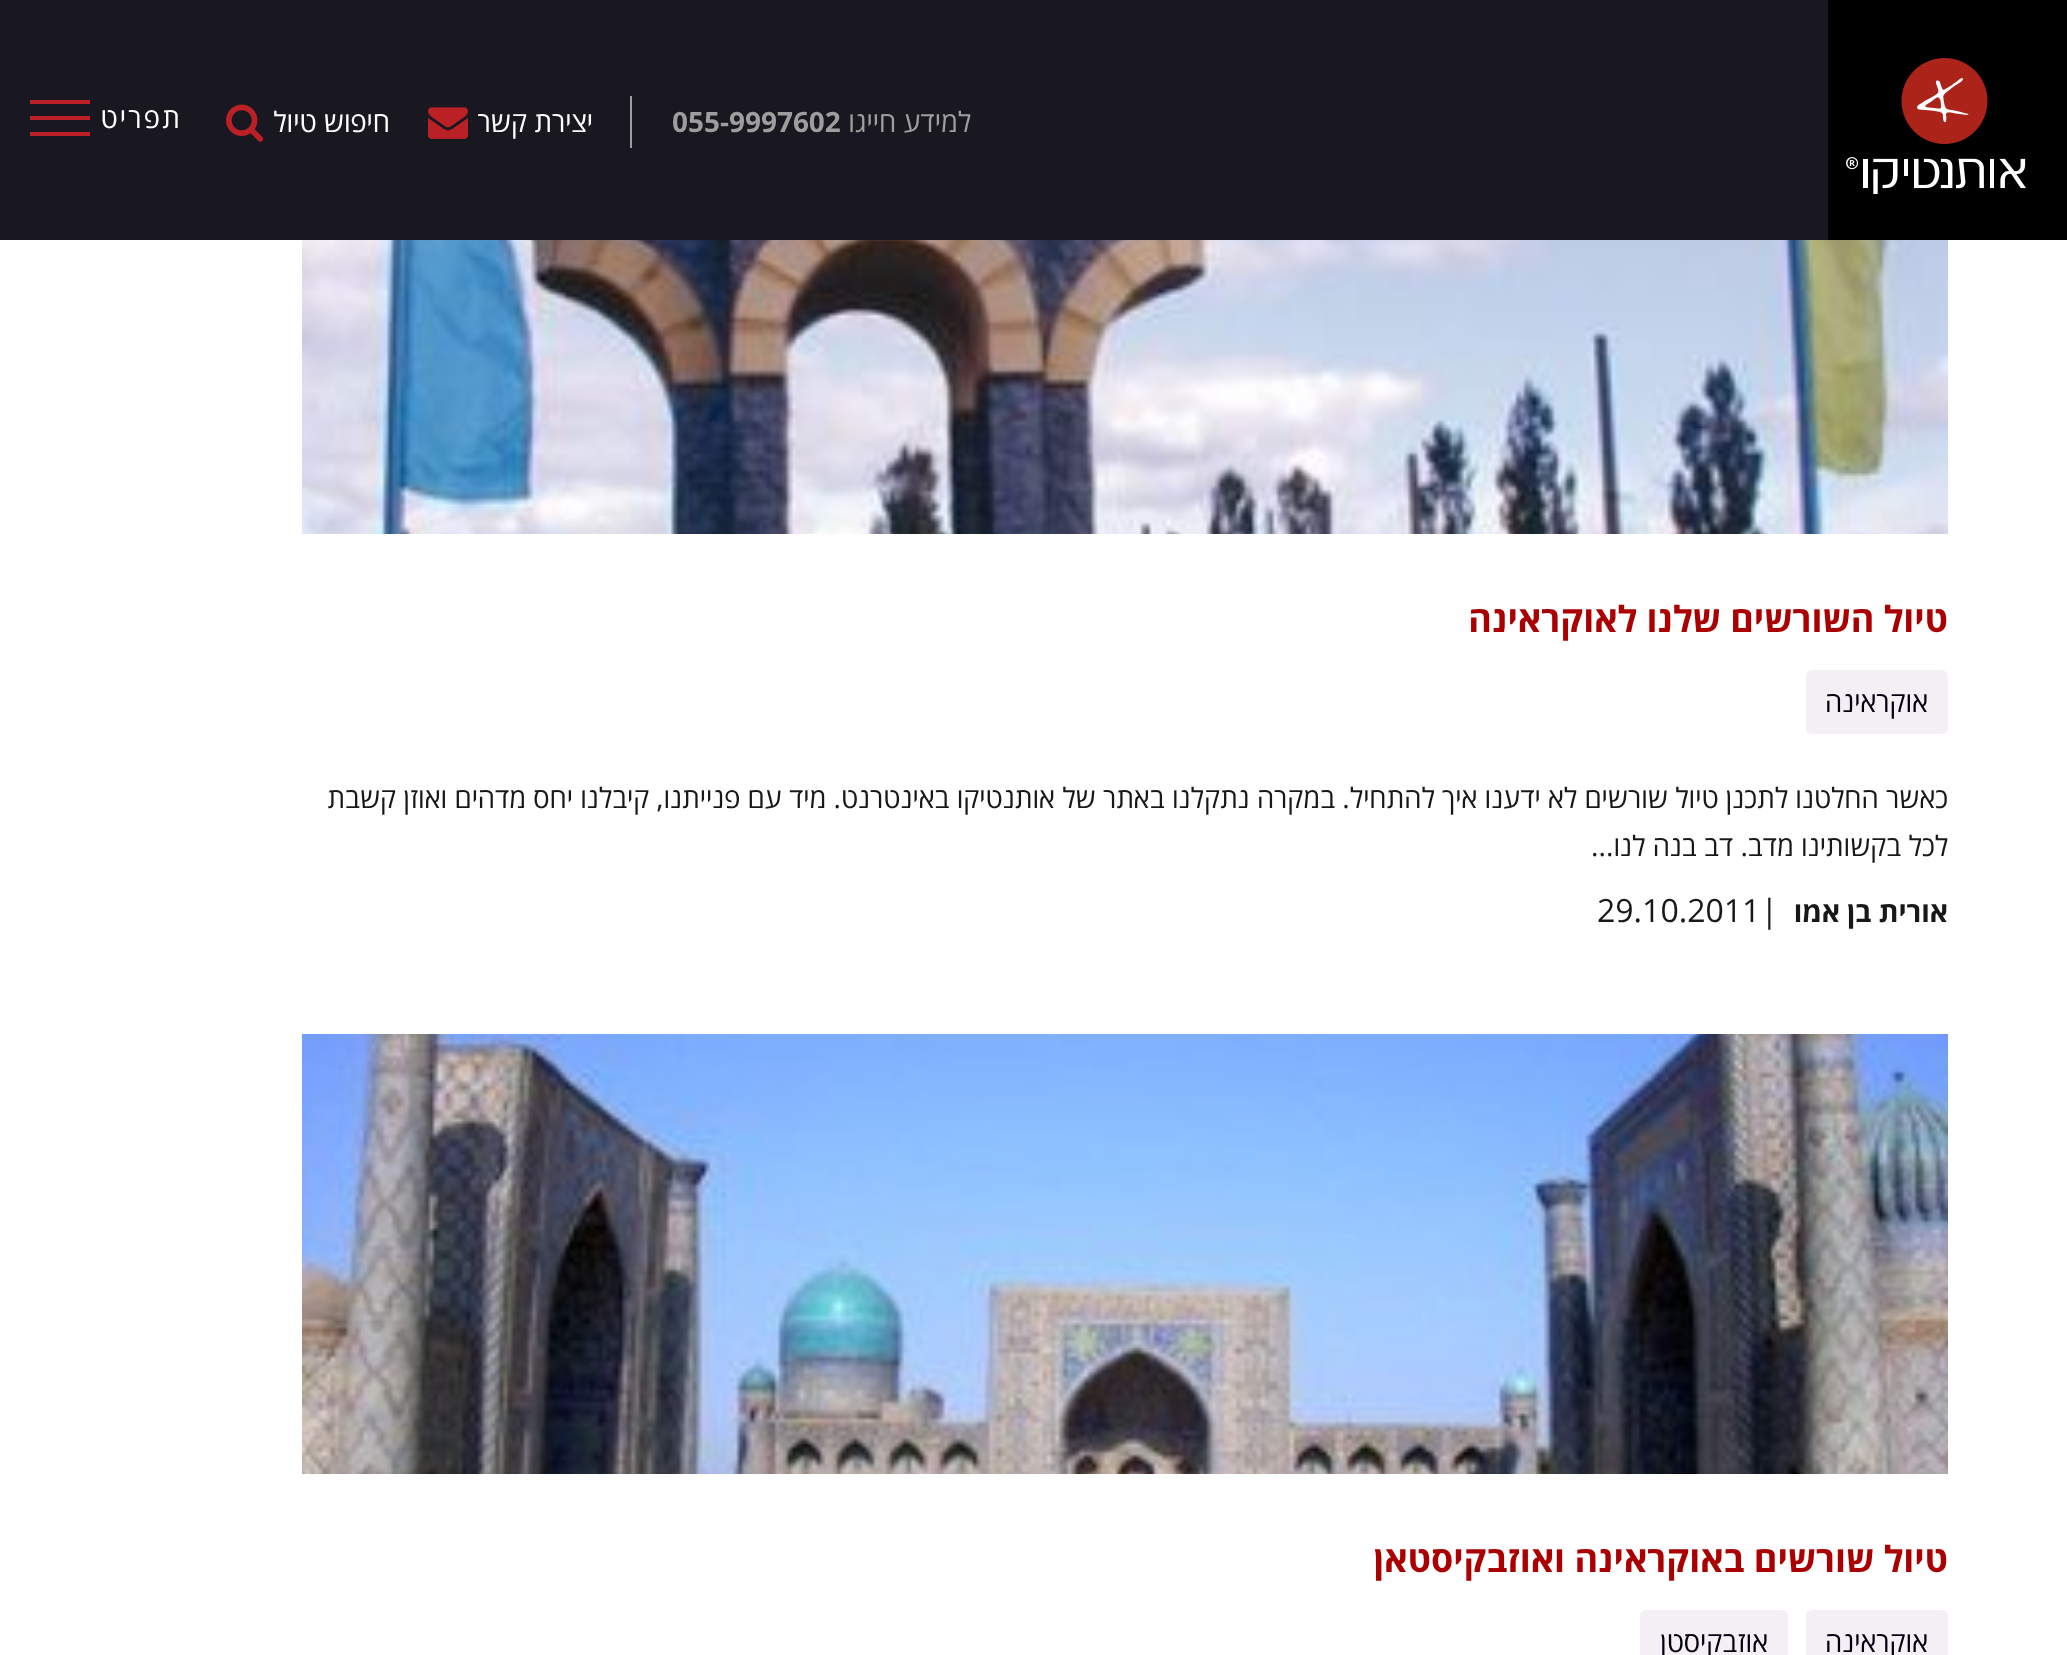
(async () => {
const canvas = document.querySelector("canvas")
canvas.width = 2067
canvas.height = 1655
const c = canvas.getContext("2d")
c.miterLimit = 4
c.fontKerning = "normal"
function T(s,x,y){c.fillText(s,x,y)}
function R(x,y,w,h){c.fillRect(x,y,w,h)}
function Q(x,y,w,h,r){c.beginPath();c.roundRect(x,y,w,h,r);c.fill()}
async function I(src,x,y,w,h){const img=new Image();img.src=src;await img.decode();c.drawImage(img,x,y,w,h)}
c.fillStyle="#fff"
R(0,0,2067,1655)
c.fillStyle="#191720"
R(0,0,1828,240)
c.fillStyle="#000"
R(1828,0,239,240)
await I("1.png",1846,58,180,136)
c.fillStyle="#9e9e9e"
R(630,96,2,52)
c.direction="rtl"
c.font="28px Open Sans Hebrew"
T("למידע חייגו",971,132)
c.direction="ltr"
c.font="bold 28px Open Sans Hebrew"
T("055-9997602",672,132)
c.direction="rtl"
c.font="28px Open Sans Hebrew"
c.fillStyle="#fff"
T("יצירת קשר",593,132)
await I("2.png",428,107,40,32)
T("חיפוש טיול",390,132)
await I("3.png",226,104,38,38)
c.letterSpacing="2.25px"
T("תפריט",182,128)
c.fillStyle="#ba2025"
R(30,100,60,4)
R(30,116,60,4)
R(30,132,60,4)
await I("4.png",302,240,1646,294)
c.letterSpacing="0px"
c.font="bold 36px Open Sans Hebrew"
c.fillStyle="#aa0001"
T("טיול השורשים שלנו לאוקראינה",1948,632)
c.fillStyle="#f4eff4"
Q(1806,670,142,64,6)
c.font="28px Open Sans Hebrew"
c.fillStyle="#001"
T("אוקראינה",1928,712)
c.fillStyle="#191719"
T("כאשר החלטנו לתכנן טיול שורשים לא ידענו איך להתחיל. במקרה נתקלנו באתר של אותנטיקו באינטרנט. מיד עם פנייתנו, קיבלנו יחס מדהים ואוזן קשבת",1948,808)
T("לכל בקשותינו מדב. דב בנה לנו...",1948,856)
c.font="bold 28px Open Sans Hebrew"
T("אורית בן אמו",1948,922)
c.direction="ltr"
c.font="32px Open Sans Hebrew"
T("29.10.2011|",1597,922)
await I("5.png",302,1034,1646,440)
c.direction="rtl"
c.font="bold 36px Open Sans Hebrew"
c.fillStyle="#aa0001"
T("טיול שורשים באוקראינה ואוזבקיסטאן",1948,1572)
c.fillStyle="#f4eff4"
Q(1806,1610,142,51,6)
c.font="28px Open Sans Hebrew"
c.fillStyle="#001"
T("אוקראינה",1928,1652)
c.fillStyle="#f4eff4"
Q(1640,1610,148,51,6)
c.fillStyle="#001"
T("אוזבקיסטן",1768,1652)
})()
